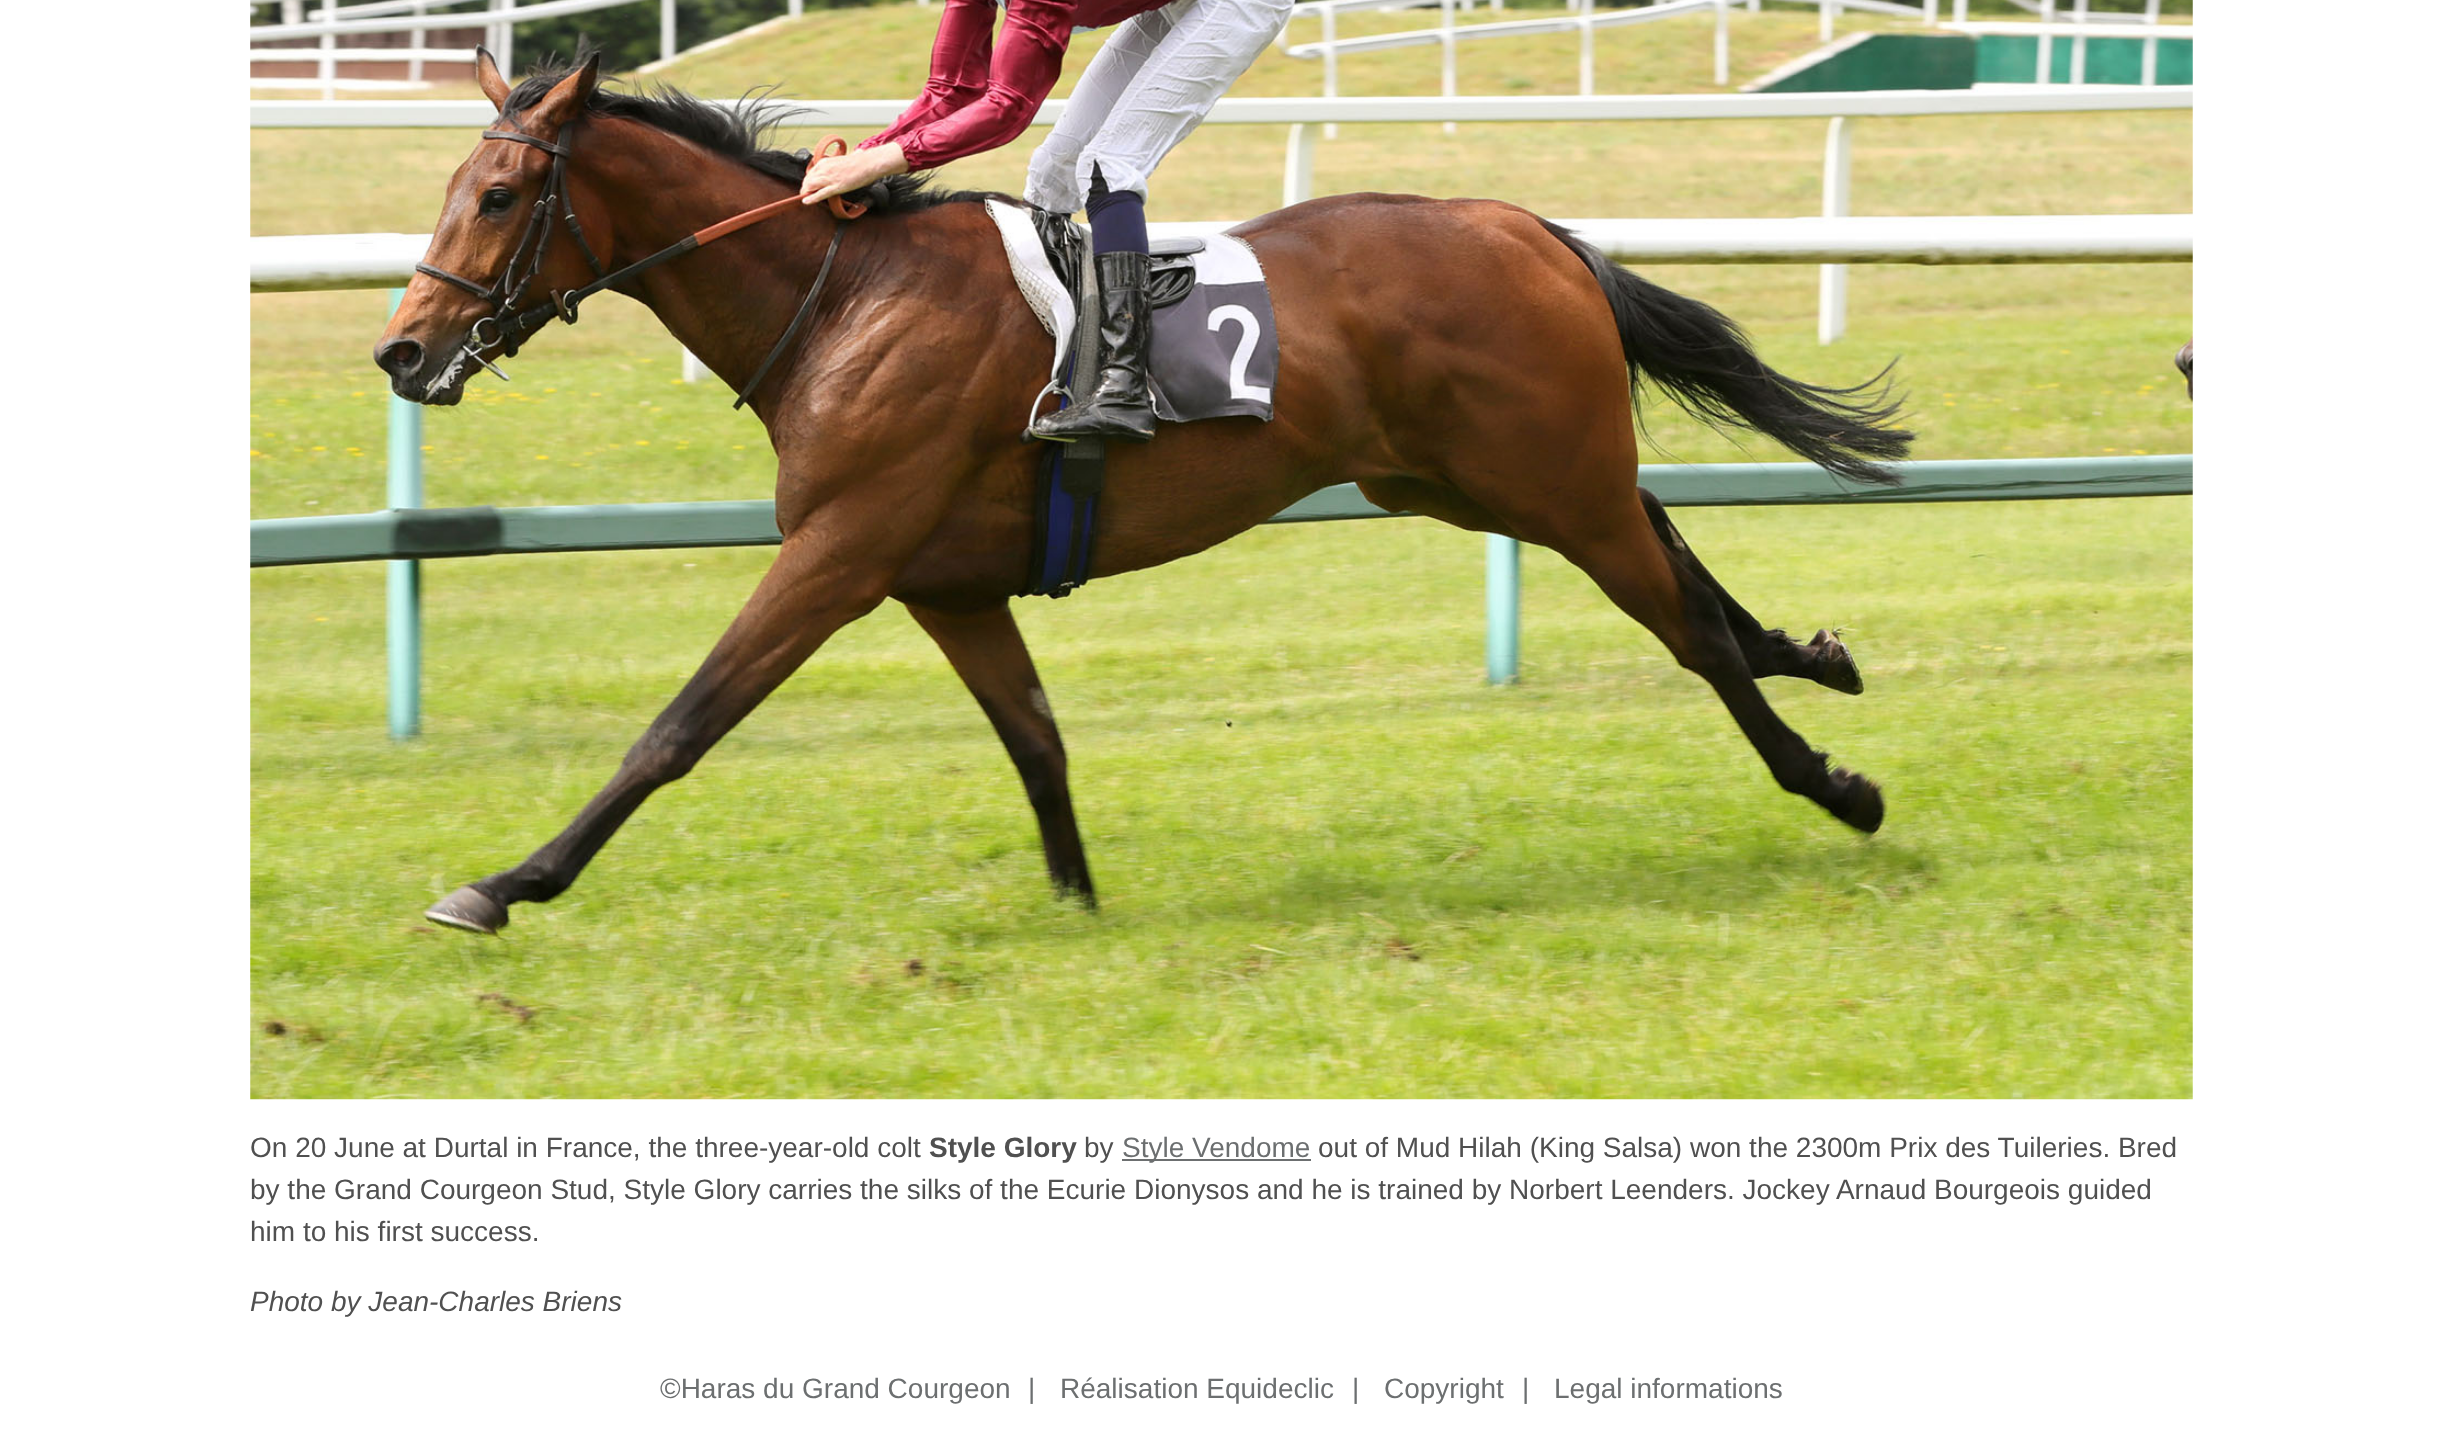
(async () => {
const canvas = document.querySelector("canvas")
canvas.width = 2442
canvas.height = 1438
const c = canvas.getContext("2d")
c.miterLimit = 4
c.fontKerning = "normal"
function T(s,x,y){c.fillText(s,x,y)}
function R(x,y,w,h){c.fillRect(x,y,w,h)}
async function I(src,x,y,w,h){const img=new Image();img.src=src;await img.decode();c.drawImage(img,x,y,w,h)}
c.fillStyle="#fff"
R(0,0,2442,1438)
await I("1.png",250,0,1943,1100)
c.font="28px Liberation Sans"
c.fillStyle="#505050"
T("On 20 June at Durtal in France, the three-year-old colt",250,1157)
c.font="bold 28px Liberation Sans"
T("Style Glory",929,1157)
c.font="28px Liberation Sans"
T("by",1084,1157)
c.fillStyle="#6c6f70"
R(1122,1159,189,2)
T("Style Vendome",1122,1157)
c.fillStyle="#505050"
T("out of Mud Hilah (King Salsa) won the 2300m Prix des Tuileries. Bred",1318,1157)
T("by the Grand Courgeon Stud, Style Glory carries the silks of the Ecurie Dionysos and he is trained by Norbert Leenders. Jockey Arnaud Bourgeois guided",250,1199)
T("him to his first success.",250,1241)
c.font="italic 28px Liberation Sans"
T("Photo by Jean-Charles Briens",250,1311)
c.font="28px Liberation Sans"
c.fillStyle="#6c6f70"
T("©Haras du Grand Courgeon",660,1398)
T("|",1028,1398)
T("Réalisation Equideclic",1060,1398)
T("|",1352,1398)
T("Copyright",1384,1398)
T("|",1522,1398)
T("Legal informations",1554,1398)
})()
